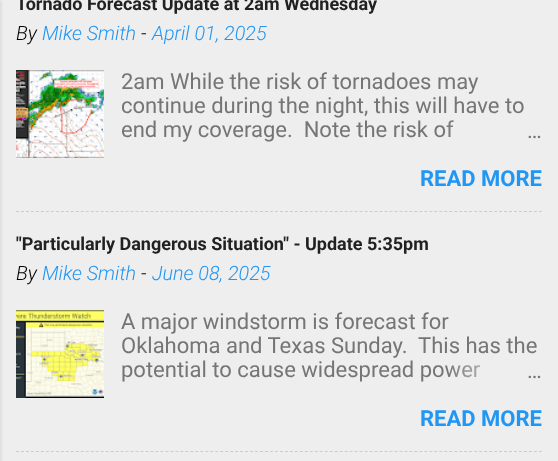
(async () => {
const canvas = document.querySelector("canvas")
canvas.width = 558
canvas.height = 461
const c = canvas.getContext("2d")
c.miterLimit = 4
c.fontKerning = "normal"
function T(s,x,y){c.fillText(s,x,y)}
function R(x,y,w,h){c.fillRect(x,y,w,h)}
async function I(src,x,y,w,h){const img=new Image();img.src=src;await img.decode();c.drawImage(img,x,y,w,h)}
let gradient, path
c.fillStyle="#eee"
R(0,0,558,461)
c.fillStyle="#0000001a"
c.filter="blur(1.5px)"
c.beginPath()
c.rect(-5,1,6,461)
c.fill()
c.filter="none"
c.font="bold 18px Roboto"
c.fillStyle="#212121"
T("Tornado Forecast Update at 2am Wednesday",16,10)
c.font="italic 300 19.75px Roboto"
c.fillStyle="#000"
T("By",16,40)
c.fillStyle="#2196f3"
T("Mike Smith",42,40)
c.fillStyle="#000"
T("-",141,40)
c.fillStyle="#2196f3"
T("April 01, 2025",152,40)
await I("1.png",16,70,88,88)
c.font="22px Roboto"
c.fillStyle="#757575"
T("2am While the risk of tornadoes may",121,89)
T("continue during the night, this will have to",121,113)
T("end my coverage.  Note the risk of",121,137)
gradient = c.createLinearGradient(542,130,446,130)
gradient.addColorStop(0,"#eee")
gradient.addColorStop(.2,"#eee")
gradient.addColorStop(1,"#eeeeee00")
c.fillStyle = gradient
R(448,120,6,17)
c.fillStyle="#757575"
T("…",527,138)
c.font="bold 22px Roboto"
c.fillStyle="#2196f3"
T("READ MORE",420,186)
path = new Path2D("M16 211.5h526")
c.strokeStyle="#ccc"
c.setLineDash([3,1.98])
c.stroke(path)
c.font="bold 18px Roboto"
c.fillStyle="#212121"
T("\"Particularly Dangerous Situation\" - Update 5:35pm",16,250)
c.font="italic 300 19.75px Roboto"
c.fillStyle="#000"
T("By",16,280)
c.fillStyle="#2196f3"
T("Mike Smith",42,280)
c.fillStyle="#000"
T("-",141,280)
c.fillStyle="#2196f3"
T("June 08, 2025",152,280)
await I("2.png",16,310,88,88)
c.font="22px Roboto"
c.fillStyle="#757575"
T("A major windstorm is forecast for",121,329)
T("Oklahoma and Texas Sunday.  This has the",121,353)
T("potential to cause widespread power",121,377)
gradient = c.createLinearGradient(542,370,446,370)
gradient.addColorStop(0,"#eee")
gradient.addColorStop(.2,"#eee")
gradient.addColorStop(1,"#eeeeee00")
c.fillStyle = gradient
R(448,365,32,13)
c.fillStyle="#757575"
T("…",527,378)
c.font="bold 22px Roboto"
c.fillStyle="#2196f3"
T("READ MORE",420,426)
path = new Path2D("M16 451.5h526")
c.stroke(path)
})()
